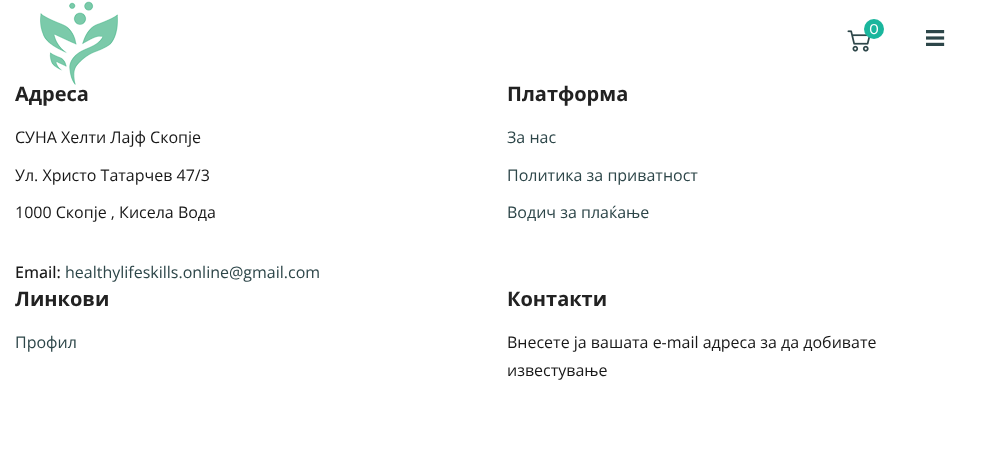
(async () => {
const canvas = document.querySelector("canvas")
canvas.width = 984
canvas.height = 473
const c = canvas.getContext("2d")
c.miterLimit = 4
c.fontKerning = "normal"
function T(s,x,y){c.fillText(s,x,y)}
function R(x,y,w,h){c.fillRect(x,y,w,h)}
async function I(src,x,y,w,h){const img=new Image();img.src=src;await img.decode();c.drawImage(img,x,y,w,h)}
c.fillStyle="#fff"
R(0,0,984,473)
await I("1.png",40,1,78,84)
await I("2.png",847,30,23,22)
c.fillStyle="#1ab69d"
c.beginPath()
c.arc(874,29,10,0,7)
c.fill()
c.font="500 12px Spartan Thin"
c.fillStyle="#fff"
T("0",869,34)
await I("3.png",926,30,19,16)
c.font="bold 20px Open Sans"
c.fillStyle="#222"
T("Адреса",15,101)
c.font="16px Open Sans"
c.fillStyle="#181818"
T("СУНА Хелти Лајф Скопје",15,143)
T("Ул. Христо Татарчев 47/3",15,181)
T("1000 Скопје , Кисела Вода",15,218)
c.font="500 16px Open Sans"
T("Email:",15,278)
c.font="16px Open Sans"
c.fillStyle="#2d4649"
T("healthylifeskills.online@gmail.com",65,278)
c.font="bold 20px Open Sans"
c.fillStyle="#222"
T("Платформа",507,101)
c.font="16px Open Sans"
c.fillStyle="#2d4649"
T("За нас",507,143)
T("Политика за приватност",507,181)
T("Водич за плаќање",507,218)
c.font="bold 20px Open Sans"
c.fillStyle="#222"
T("Линкови",15,306)
c.font="16px Open Sans"
c.fillStyle="#2d4649"
T("Профил",15,348)
c.font="bold 20px Open Sans"
c.fillStyle="#222"
T("Контакти",507,306)
c.font="16px Open Sans"
c.fillStyle="#181818"
T("Внесете ја вашата e-mail адреса за да добивате",507,348)
T("известување",507,376)
})()
